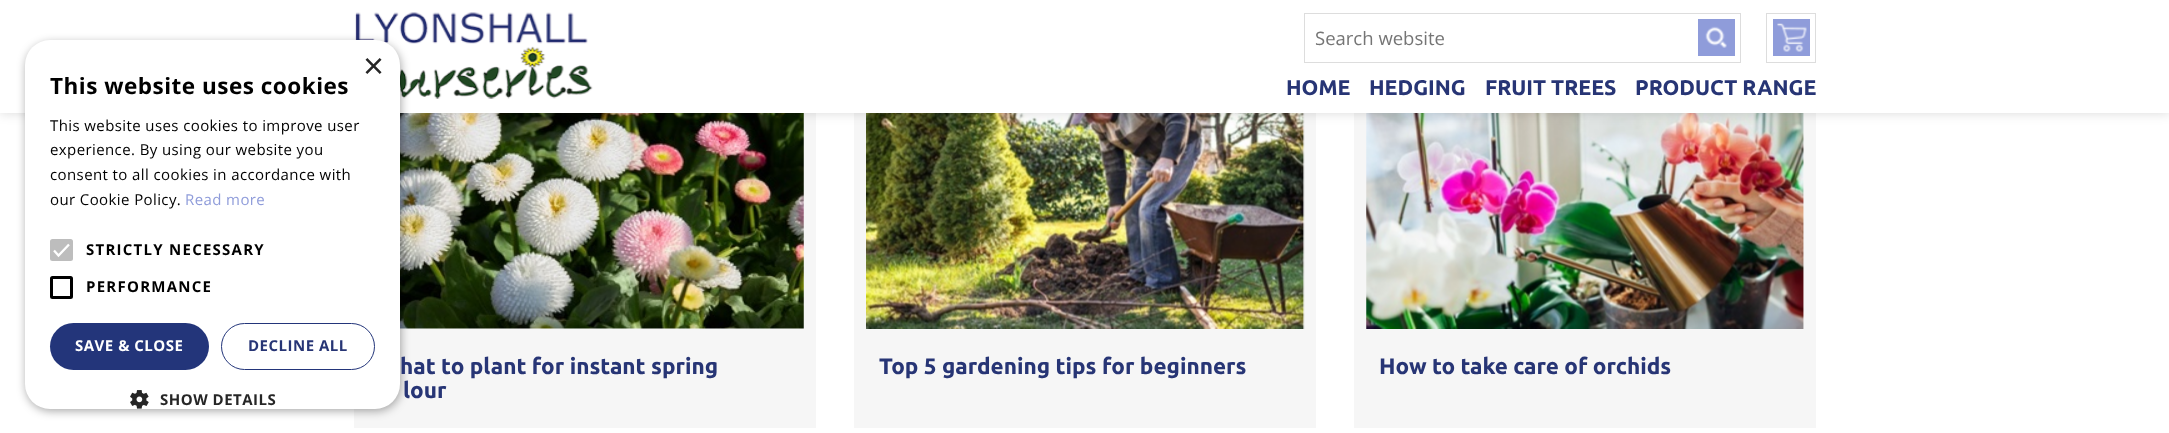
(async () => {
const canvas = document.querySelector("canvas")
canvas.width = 2169
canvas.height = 433
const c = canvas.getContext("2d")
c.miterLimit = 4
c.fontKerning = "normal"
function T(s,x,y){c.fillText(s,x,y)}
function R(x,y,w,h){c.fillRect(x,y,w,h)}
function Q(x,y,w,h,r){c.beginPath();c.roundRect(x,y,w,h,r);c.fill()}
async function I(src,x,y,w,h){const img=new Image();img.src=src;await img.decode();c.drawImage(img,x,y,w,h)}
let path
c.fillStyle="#fff"
R(0,0,2169,433)
c.fillStyle="#f6f6f6"
R(354,113,462,315)
await I("5.png",400,113,404,216)
R(854,113,462,315)
await I("6.png",866,113,439,216)
R(1354,113,462,315)
await I("7.png",1366,113,438,216)
c.fillStyle="#00000026"
c.filter="blur(6px)"
c.beginPath()
c.rect(0,-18,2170,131)
c.fill()
c.filter="none"
c.fillStyle="#fff"
R(0,0,2169,113)
await I("2.png",354,12,239,87)
c.fillStyle="#00000059"
c.filter="blur(5px)"
c.beginPath()
c.roundRect(26,43,375,368,25)
c.fill()
c.filter="none"
c.fillStyle="#fff"
Q(25,40,375,369,25)
c.font="36px Liberation Sans"
c.fillStyle="#262626"
T("×",363,78)
c.letterSpacing="0.5px"
c.font="bold 22.5px Open Sans"
c.fillStyle="#000"
T("This website uses cookies",50,94)
c.letterSpacing="0.4px"
c.font="15px Open Sans"
T("This website uses cookies to improve user",50,131)
T("experience. By using our website you",50,155)
T("consent to all cookies in accordance with",50,180)
T("our Cookie Policy.",50,205)
c.fillStyle="#8f9cda"
T("Read more",185,205)
c.fillStyle="#bdbdbd"
Q(50,239,23,22,2.5)
path = new Path2D("M54 250.5l4.5 5l10.5-11")
c.strokeStyle="#fff"
c.lineWidth=2.3
c.stroke(path)
c.letterSpacing="1.25px"
c.font="bold 15px Open Sans"
c.fillStyle="#000"
T("STRICTLY NECESSARY",86,255)
c.beginPath()
c.roundRect(51.5,277.5,20,20,1)
c.strokeStyle="#000"
c.lineWidth=3
c.stroke()
T("PERFORMANCE",86,292)
c.fillStyle="#23357a"
Q(50,323,159,47,23.5)
c.letterSpacing="0.5px"
c.fillStyle="#fff"
T("SAVE & CLOSE",75,351)
c.beginPath()
c.roundRect(221.5,323.5,153,46,23)
c.strokeStyle="#23357a"
c.lineWidth=1
c.stroke()
c.fillStyle="#273575"
T("DECLINE ALL",248,351)
await I("1.png",130,390,19,19)
c.fillStyle="#262626"
T("SHOW DETAILS",160,405)
c.strokeStyle="#ddd"
c.strokeRect(1304.5,13.5,436,49)
c.letterSpacing="0px"
c.font="18.5px Open Sans"
c.fillStyle="#757575"
T("Search website",1315,45)
c.fillStyle="#8f9cda"
R(1698,19,37,37)
await I("3.png",1705,26,22,22)
c.strokeRect(1766.5,13.5,49,49)
R(1773,19,37,37)
await I("4.png",1777,23,30,29)
c.font="bold 21.25px Ubuntu"
c.fillStyle="#273575"
T("HOME",1286,95)
T("HEDGING",1369,95)
T("FRUIT TREES",1485,95)
T("PRODUCT RANGE",1635,95)
c.font="bold 22.5px Ubuntu"
T("hat to plant for instant spring",400,374)
T("lour",403,398)
T("Top 5 gardening tips for beginners",879,374)
T("How to take care of orchids",1379,374)
})()
